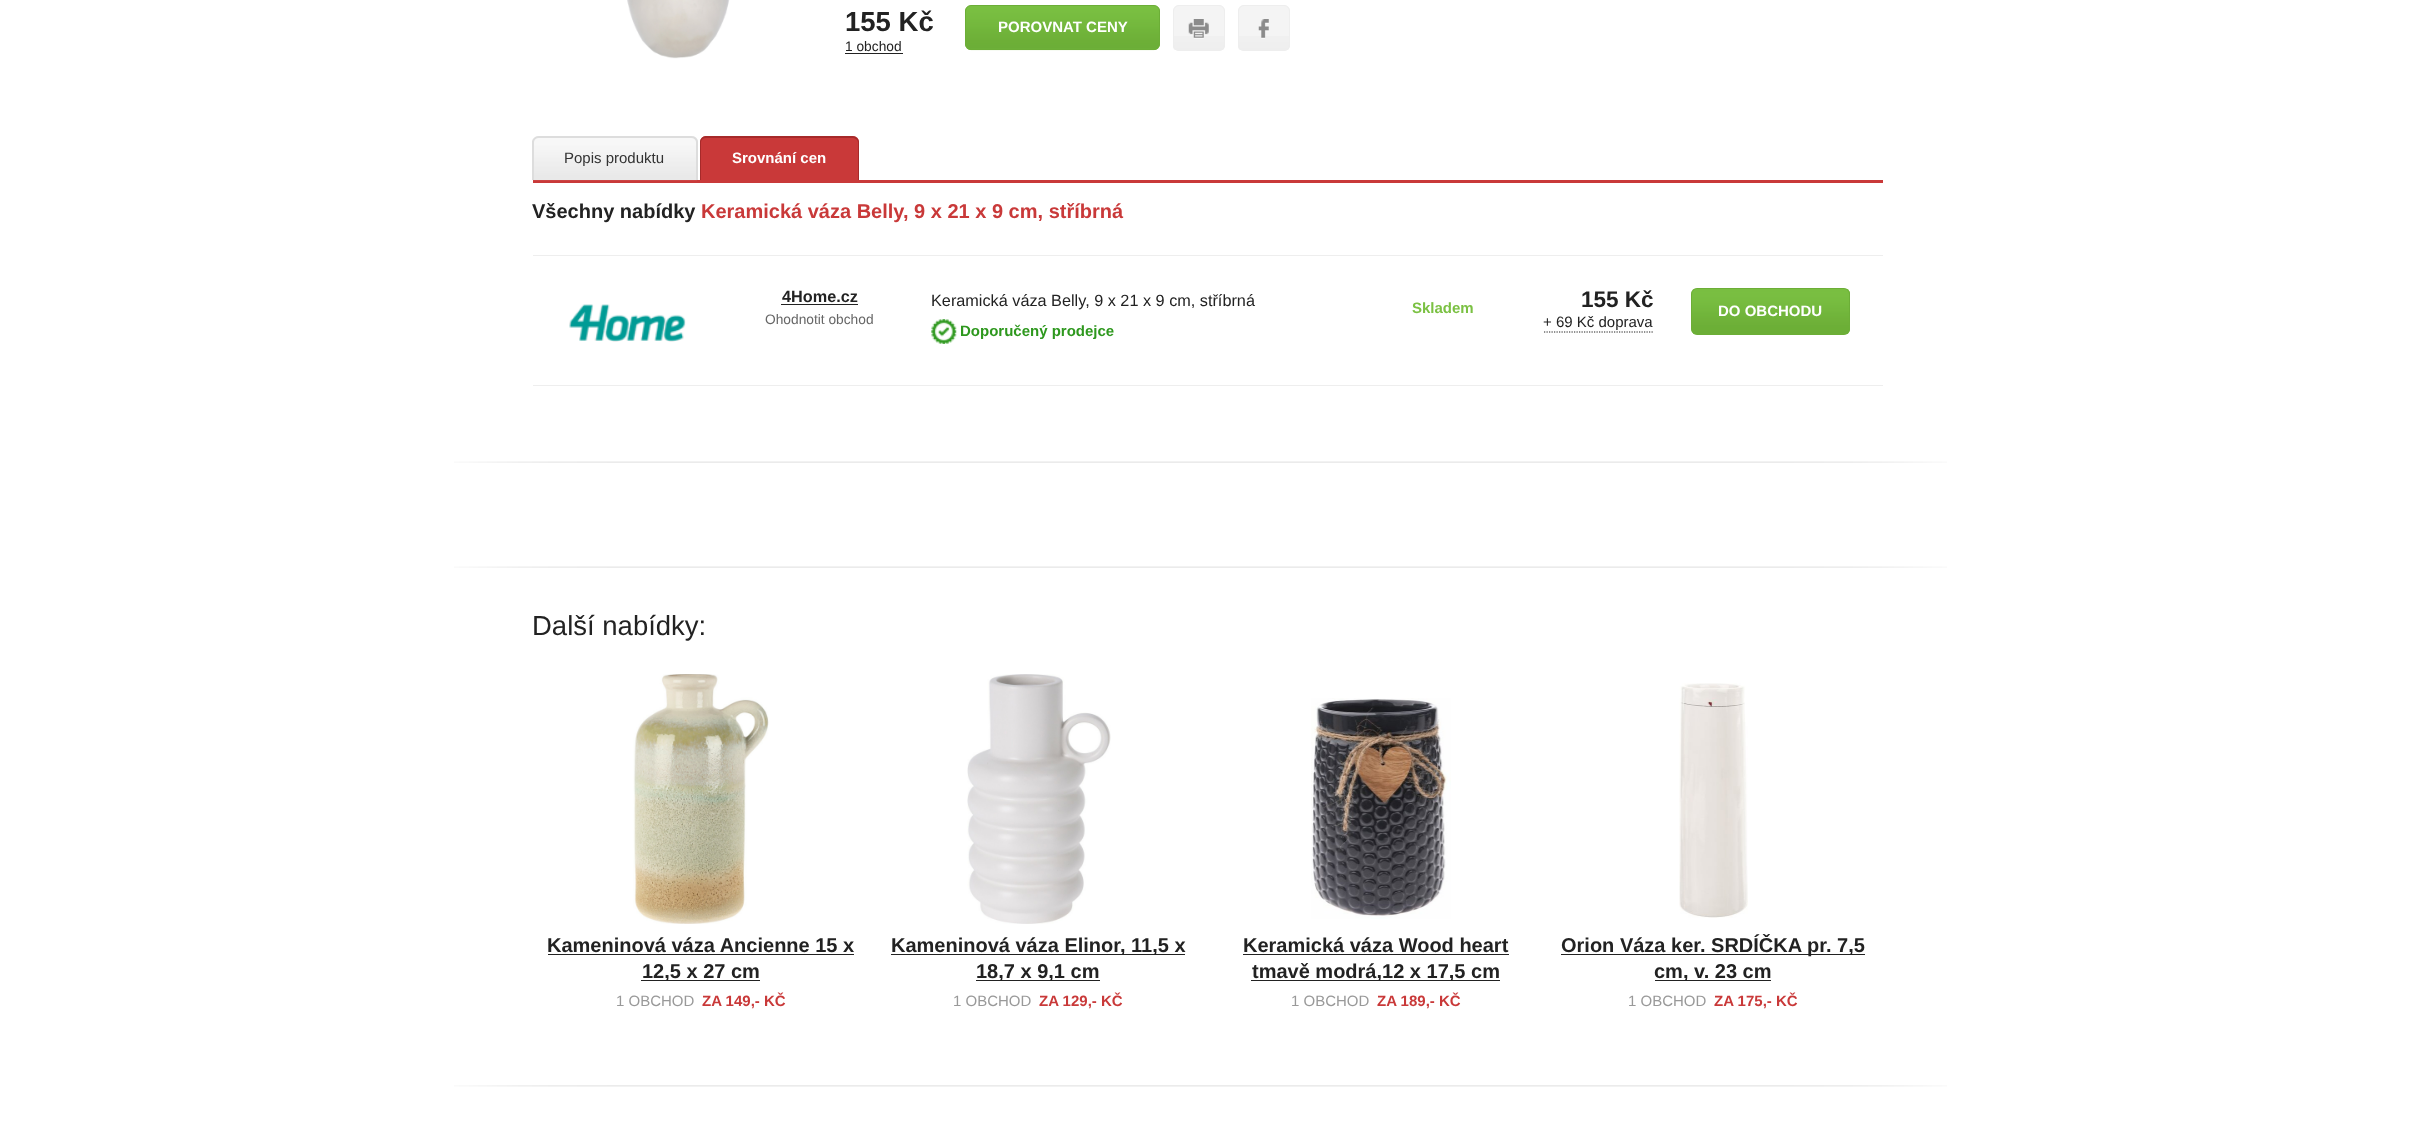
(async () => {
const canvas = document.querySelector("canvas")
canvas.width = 2413
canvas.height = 1129
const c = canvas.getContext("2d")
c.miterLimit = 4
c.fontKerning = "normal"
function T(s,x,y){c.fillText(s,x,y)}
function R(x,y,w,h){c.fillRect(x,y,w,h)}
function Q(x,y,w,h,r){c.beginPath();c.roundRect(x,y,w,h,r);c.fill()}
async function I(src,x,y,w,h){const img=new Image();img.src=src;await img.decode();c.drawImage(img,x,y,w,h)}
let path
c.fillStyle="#fff"
R(0,0,2413,1129)
await I("1.png",627,0,103,59)
c.font="bold 27.5px Liberation Sans"
c.fillStyle="#222"
T("155 Kč",845,31)
c.font="13.75px Liberation Sans"
T("1 obchod",845,51)
R(845,53,58,1)
await I("2.png",965,5,195,46)
c.beginPath()
c.roundRect(965.5,5.5,194,44,5.5)
c.strokeStyle="#6cae37"
c.stroke()
c.font="bold 15px Liberation Sans"
c.fillStyle="#fff"
T("POROVNAT CENY",998,32)
c.fillStyle="#f4f4f4"
Q(1173,5,52,46,6)
await I("3.png",1173,36,52,14)
c.beginPath()
c.roundRect(1173.5,5.5,51,45,5.5)
c.strokeStyle="#eee"
c.stroke()
await I("4.png",1188,19,21,20)
Q(1238,5,52,46,6)
await I("3.png",1238,36,52,14)
c.beginPath()
c.roundRect(1238.5,5.5,51,45,5.5)
c.stroke()
await I("5.png",1258,19,11,20)
c.fillStyle="#e8e8e8"
c.beginPath()
c.roundRect(533,136,165,44,[6,6,0,0])
c.fill()
c.fillStyle="#c93939"
R(533,180,1350,3)
await I("6.png",532,137,165,44)
c.fillStyle="#ddd"
path = new Path2D("M539 136h152c4 0 7 3 7 6v38h-166v-38c0-3 3-6 7-6zm0 2h152c3 0 5 2 5 4v38h-162v-38c0-2 2-4 5-4z")
c.fill(path,"evenodd")
c.font="15px Liberation Sans"
c.fillStyle="#333"
T("Popis produktu",564,163)
c.fillStyle="#c93939"
c.beginPath()
c.roundRect(700,136,159,44,[6,6,0,0])
c.fill()
c.fillStyle="#a62a2a"
path = new Path2D("M706 136h146c4 0 7 3 7 6v38h-159v-38c0-3 3-6 6-6zm0 2h146c3 0 6 2 6 4v38h-157v-38c0-2 2-4 5-4z")
c.fill(path,"evenodd")
c.font="bold 15px Liberation Sans"
c.fillStyle="#fff"
T("Srovnání cen",732,163)
c.font="bold 20px Liberation Sans"
c.fillStyle="#222"
T("Všechny nabídky",532,218)
c.fillStyle="#c93939"
T("Keramická váza Belly, 9 x 21 x 9 cm, stříbrná",701,218)
c.fillStyle="#eee"
R(533,255,1350,1)
R(533,385,1350,1)
await I("7.png",569,304,117,38)
c.font="bold 16.25px Liberation Sans"
c.fillStyle="#222"
T("4Home.cz",782,302)
R(781,304,77,1)
c.font="13.75px Liberation Sans"
c.fillStyle="#666"
T("Ohodnotit obchod",765,324)
c.font="16.25px Liberation Sans"
c.fillStyle="#222"
T("Keramická váza Belly, 9 x 21 x 9 cm, stříbrná",931,306)
await I("8.png",931,319,26,25)
c.font="bold 15px Liberation Sans"
c.fillStyle="#2e981e"
T("Doporučený prodejce",960,336)
c.fillStyle="#7bc143"
T("Skladem",1412,313)
c.font="bold 22.5px Liberation Sans"
c.fillStyle="#222"
T("155 Kč",1581,307)
c.font="15px Liberation Sans"
T("+ 69 Kč doprava",1543,327)
path = new Path2D("M1544 332h110")
c.strokeStyle="#222"
c.lineWidth=1.2
c.setLineDash([1.25,1.25])
c.stroke(path)
await I("9.png",1691,289,159,45)
c.beginPath()
c.roundRect(1691.5,288.5,158,46,5.5)
c.strokeStyle="#6cae37"
c.lineWidth=1
c.setLineDash([])
c.stroke()
c.font="bold 15px Liberation Sans"
c.fillStyle="#fff"
T("DO OBCHODU",1718,316)
await I("10.png",454,461,1493,2)
await I("10.png",454,566,1493,2)
c.font="27.5px Liberation Sans"
c.fillStyle="#222"
T("Další nabídky:",532,635)
await I("11.png",633,674,136,250)
c.font="bold 20px Liberation Sans"
T("Kameninová váza Ancienne 15 x",547,952)
R(548,954,306,1)
R(641,980,119,1)
T("12,5 x 27 cm",642,978)
c.font="15px Liberation Sans"
c.fillStyle="#999"
T("1 OBCHOD",616,1006)
c.font="bold 15px Liberation Sans"
c.fillStyle="#c93939"
T("ZA 149,- KČ",702,1006)
await I("12.png",967,674,144,250)
c.fillStyle="#222"
R(891,954,294,1)
c.font="bold 20px Liberation Sans"
T("Kameninová váza Elinor, 11,5 x",891,952)
R(976,980,124,1)
T("18,7 x 9,1 cm",976,978)
c.font="15px Liberation Sans"
c.fillStyle="#999"
T("1 OBCHOD",953,1006)
c.font="bold 15px Liberation Sans"
c.fillStyle="#c93939"
T("ZA 129,- KČ",1039,1006)
await I("13.png",1311,698,140,221)
c.font="bold 20px Liberation Sans"
c.fillStyle="#222"
T("Keramická váza Wood heart",1243,952)
R(1243,954,266,1)
R(1251,980,249,1)
T("tmavě modrá,12 x 17,5 cm",1252,978)
c.font="15px Liberation Sans"
c.fillStyle="#999"
T("1 OBCHOD",1291,1006)
c.font="bold 15px Liberation Sans"
c.fillStyle="#c93939"
T("ZA 189,- KČ",1377,1006)
await I("14.png",1679,683,69,235)
c.fillStyle="#222"
R(1561,954,304,1)
c.font="bold 20px Liberation Sans"
T("Orion Váza ker. SRDÍČKA pr. 7,5",1561,952)
R(1655,980,116,1)
T("cm, v. 23 cm",1654,978)
c.font="15px Liberation Sans"
c.fillStyle="#999"
T("1 OBCHOD",1628,1006)
c.font="bold 15px Liberation Sans"
c.fillStyle="#c93939"
T("ZA 175,- KČ",1714,1006)
await I("15.png",454,1085,1493,2)
})()
